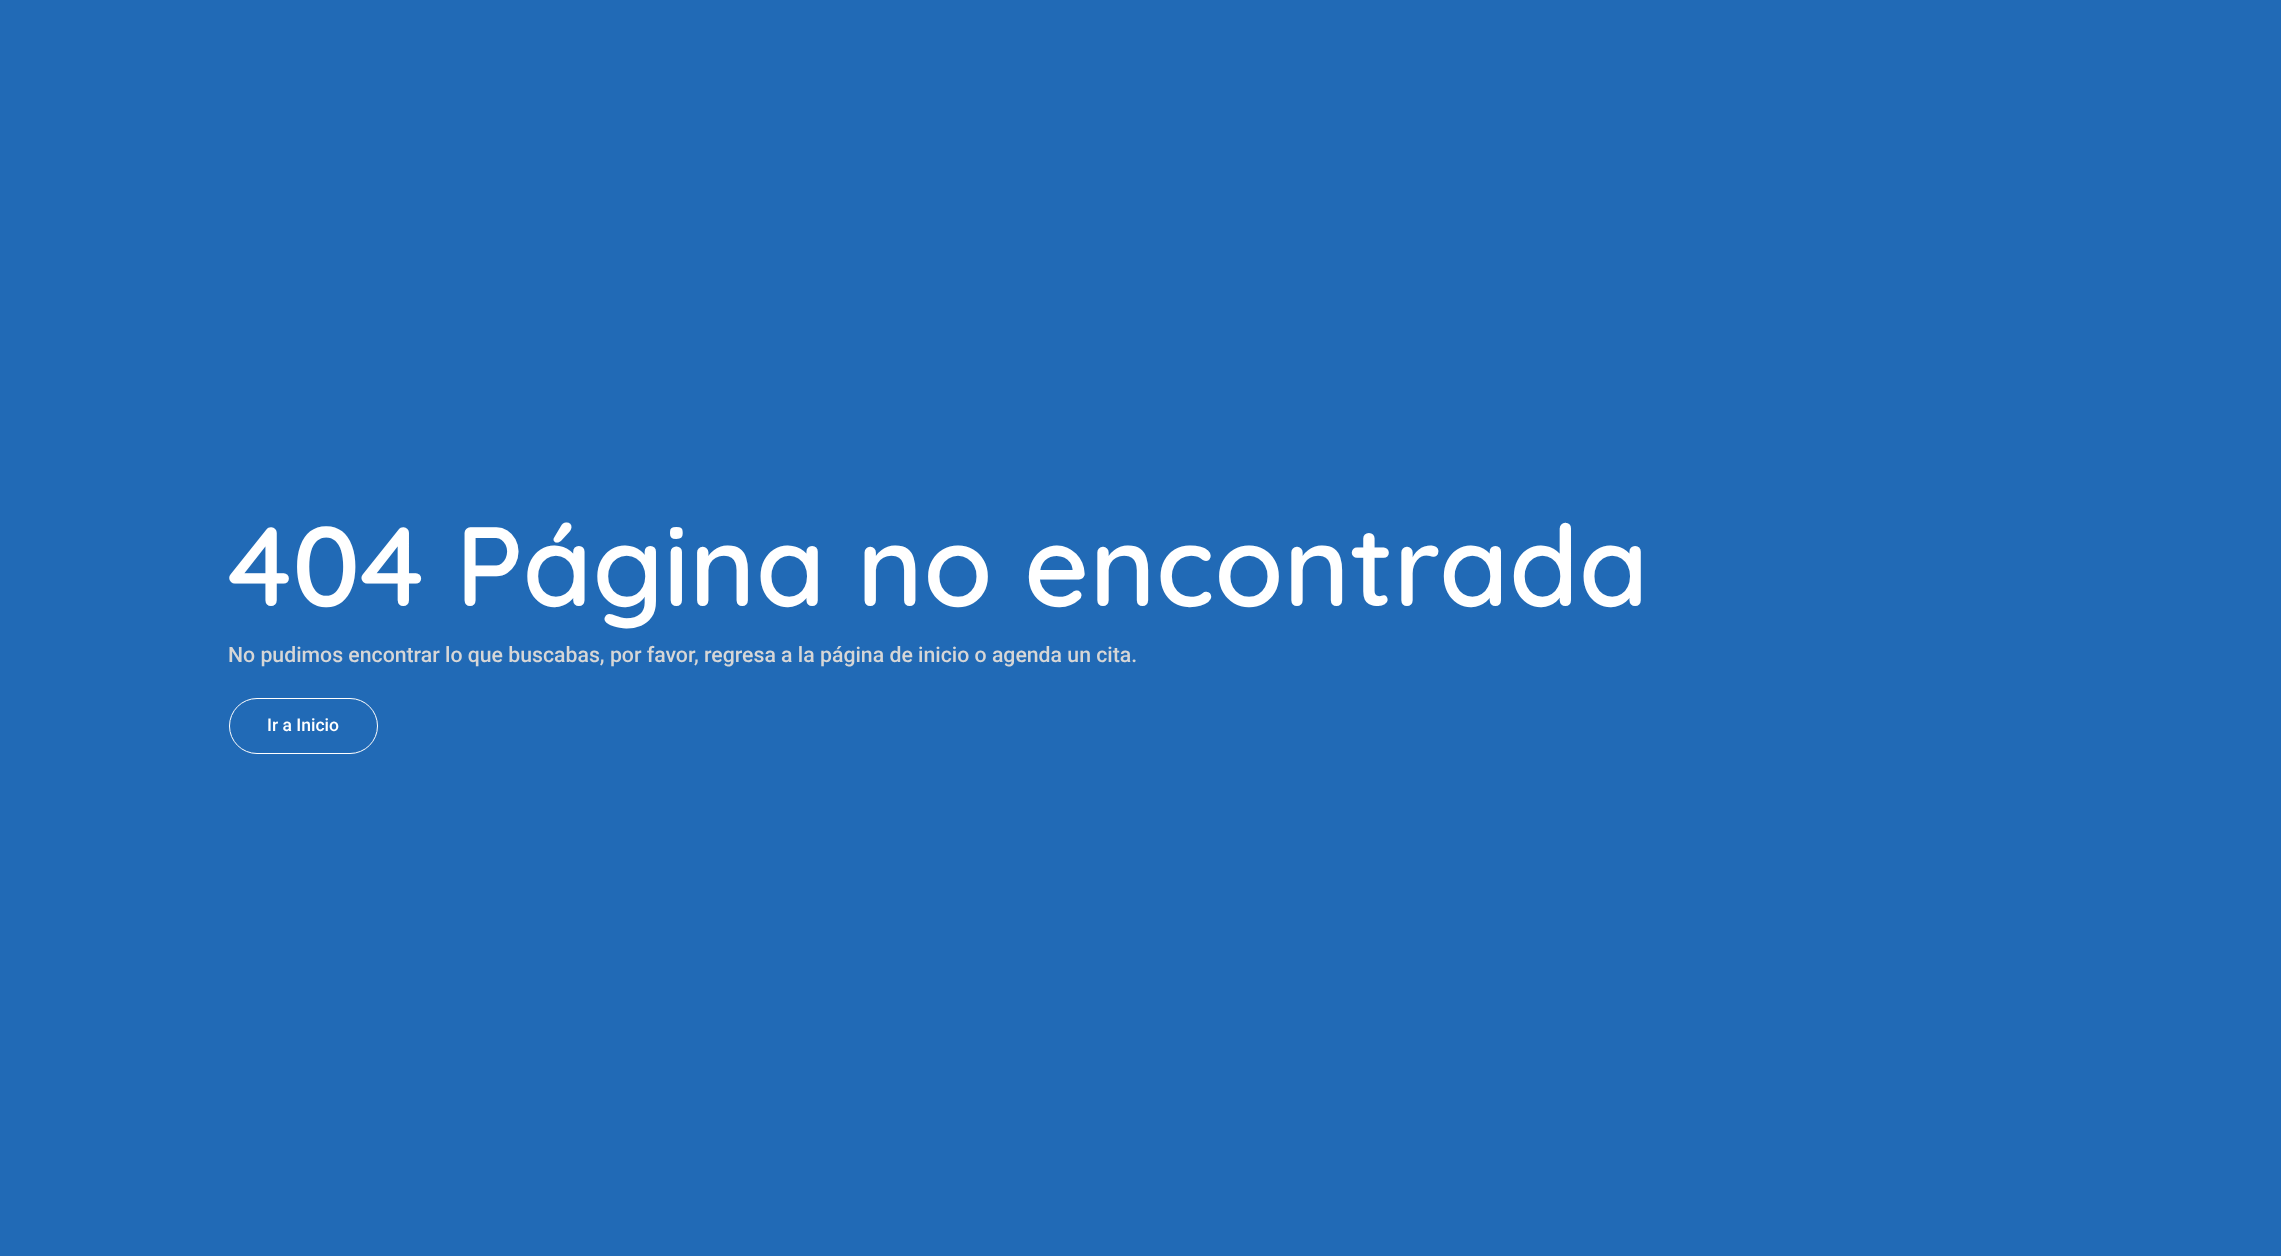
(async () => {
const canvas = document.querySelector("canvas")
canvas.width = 2281
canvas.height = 1256
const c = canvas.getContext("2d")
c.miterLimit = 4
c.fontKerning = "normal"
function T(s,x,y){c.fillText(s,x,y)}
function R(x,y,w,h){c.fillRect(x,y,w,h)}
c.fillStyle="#216ab6"
R(0,0,2281,1256)
c.font="600 112.5px Quicksand"
c.fillStyle="#fff"
T("404 Página no encontrada",228,606)
c.font="500 21.25px Roboto"
c.fillStyle="#d6d6d6"
T("No pudimos encontrar lo que buscabas, por favor, regresa a la página de inicio o agenda un cita.",228,662)
c.beginPath()
c.roundRect(229.5,698.5,148,55,27.5)
c.strokeStyle="#fff"
c.stroke()
c.font="500 17.5px Roboto"
c.fillStyle="#fff"
T("Ir a Inicio",267,731)
})()
